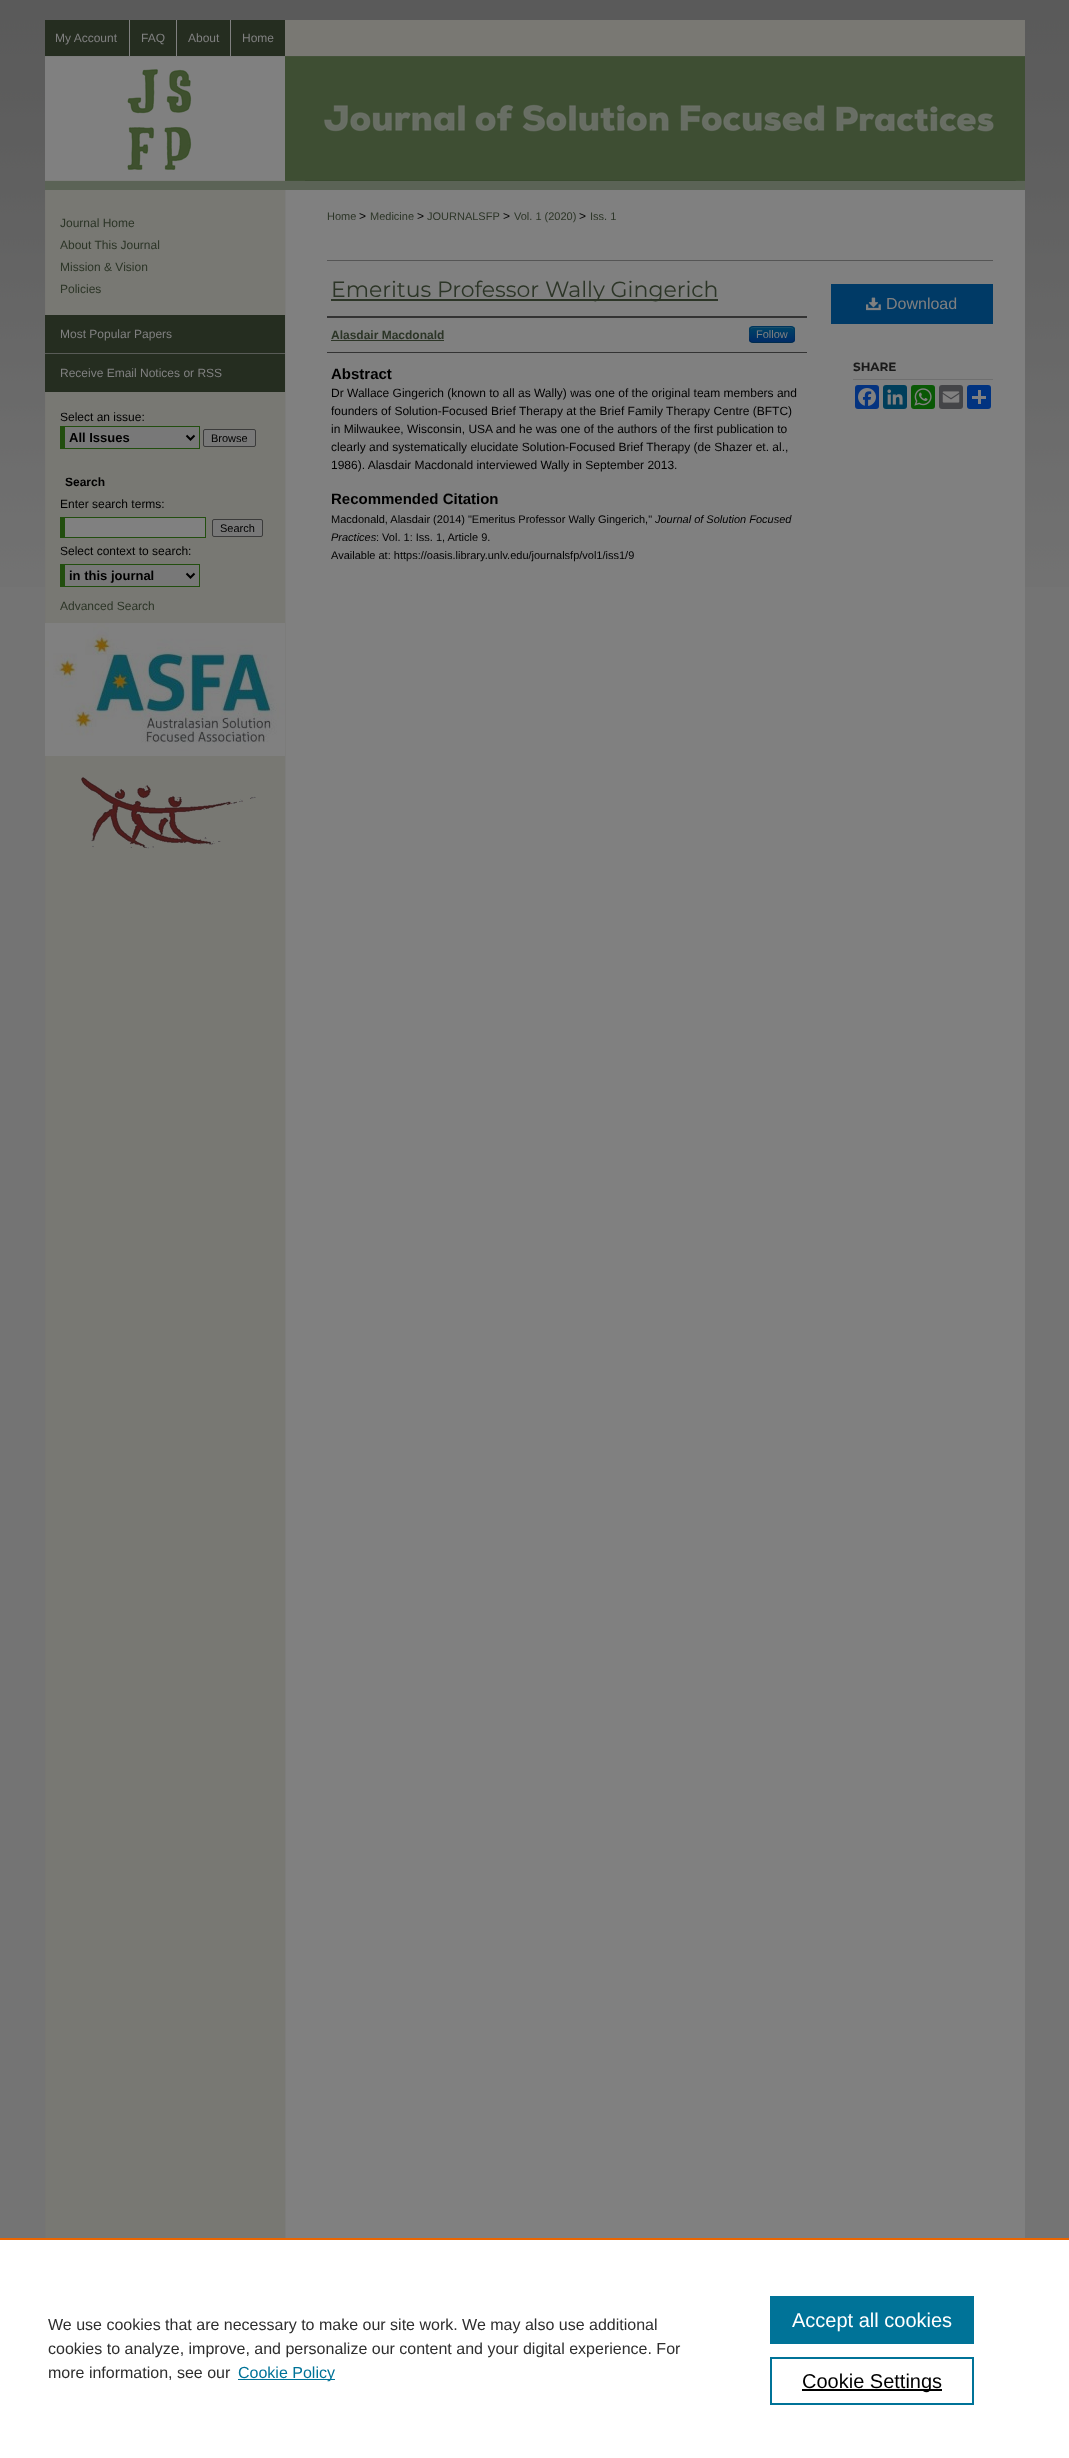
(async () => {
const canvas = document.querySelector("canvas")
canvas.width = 1069
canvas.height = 2458
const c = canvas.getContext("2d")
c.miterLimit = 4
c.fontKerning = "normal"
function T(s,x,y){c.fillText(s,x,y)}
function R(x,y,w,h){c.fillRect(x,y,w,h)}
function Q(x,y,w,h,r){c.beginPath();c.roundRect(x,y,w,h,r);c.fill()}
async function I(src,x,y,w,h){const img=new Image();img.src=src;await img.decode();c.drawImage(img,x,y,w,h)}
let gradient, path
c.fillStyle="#747474"
R(0,0,1069,2458)
await I("1.png",0,0,1069,587)
c.fillStyle="#797873"
R(285,20,740,36)
c.fillStyle="#252d20"
R(45,20,240,36)
c.fillStyle="#808080"
R(129,20,1,36)
c.font="12px Liberation Sans"
T("My Account",55,42)
R(176,20,1,36)
T("FAQ",141,42)
R(230,20,1,36)
T("About",188,42)
T("Home",242,42)
await I("2.png",45,56,980,134)
await I("3.png",45,190,250,2048)
c.fillStyle="#2c3527"
T("Journal Home",60,227)
T("About This Journal",60,249)
T("Mission & Vision",60,271)
T("Policies",60,293)
c.fillStyle="#252d20"
R(45,315,240,38)
c.fillStyle="#595b57"
R(45,353,240,1)
c.fillStyle="#808080"
T("Most Popular Papers",60,338)
c.fillStyle="#252d20"
R(45,354,240,38)
c.fillStyle="#808080"
T("Receive Email Notices or RSS",60,377)
c.fillStyle="#000"
T("Select an issue:",60,421)
c.fillStyle="#787878"
R(65,427,134,21)
c.fillStyle="#224e0f"
R(60,426,140,1)
R(199,426,1,23)
R(60,448,140,1)
R(60,426,5,23)
path = new Path2D("M186.5 435.5l4 4l4-4")
c.strokeStyle="#000"
c.lineWidth=2
c.stroke(path)
c.font="bold 13px Liberation Sans"
c.fillStyle="#000"
T("All Issues",69,442)
c.fillStyle="#787878"
c.beginPath()
c.roundRect(203.5,429.5,52,17,1.5)
c.fill()
c.strokeStyle="#3b3b3b"
c.lineWidth=1
c.stroke()
c.font="11px Liberation Sans"
c.fillStyle="#000"
T("Browse",211,442)
c.font="bold 12px Liberation Sans"
T("Search",65,486)
c.font="12px Liberation Sans"
T("Enter search terms:",60,508)
c.fillStyle="#808080"
R(65,518,140,19)
c.fillStyle="#224e0f"
R(60,517,146,1)
R(205,517,1,21)
R(60,537,146,1)
R(60,517,5,21)
c.fillStyle="#787878"
c.beginPath()
c.roundRect(212.5,519.5,50,17,1.5)
c.fill()
c.stroke()
c.font="11px Liberation Sans"
c.fillStyle="#000"
T("Search",220,532)
c.font="12px Liberation Sans"
T("Select context to search:",60,555)
c.fillStyle="#787878"
R(65,565,134,21)
c.fillStyle="#224e0f"
R(60,564,140,1)
R(199,564,1,23)
R(60,586,140,1)
R(60,564,5,23)
path = new Path2D("M186.5 573.5l4 4l4-4")
c.strokeStyle="#000"
c.lineWidth=2
c.stroke(path)
c.font="bold 13px Liberation Sans"
c.fillStyle="#000"
T("in this journal",69,580)
c.font="12px Liberation Sans"
c.fillStyle="#2c3527"
T("Advanced Search",60,610)
await I("4.png",45,623,240,133)
await I("5.png",81,777,175,72)
c.fillStyle="#808080"
R(295,190,730,2048)
c.font="11px Liberation Sans"
c.fillStyle="#2c3527"
T("Home",327,220)
c.font="12px Liberation Sans"
c.fillStyle="#000"
T(">",359,220)
c.font="11px Liberation Sans"
c.fillStyle="#2c3527"
T("Medicine",370,220)
c.font="12px Liberation Sans"
c.fillStyle="#000"
T(">",417,220)
c.font="11px Liberation Sans"
c.fillStyle="#2c3527"
T("JOURNALSFP",427,220)
c.font="12px Liberation Sans"
c.fillStyle="#000"
T(">",503,220)
c.font="11px Liberation Sans"
c.fillStyle="#2c3527"
T("Vol. 1 (2020)",514,220)
c.font="12px Liberation Sans"
c.fillStyle="#000"
T(">",579,220)
c.font="11px Liberation Sans"
c.fillStyle="#2c3527"
T("Iss. 1",590,220)
c.fillStyle="#555"
R(327,260,666,1)
c.fillStyle="#2c3527"
R(331,299,387,2)
c.font="22px Montserrat"
T("Emeritus Professor Wally Gingerich",331,297)
c.fillStyle="#333"
R(327,316,480,2)
R(327,352,480,1)
c.font="bold 12px Liberation Sans"
c.fillStyle="#2c3527"
T("Alasdair Macdonald",331,339)
R(331,340,113,1)
c.fillStyle="#003a66"
Q(749,326,46,17,4)
c.save()
c.beginPath()
c.roundRect(749,326,46,17,4)
c.clip()
gradient = c.createLinearGradient(772,327,772,342)
gradient.addColorStop(0,"#046")
gradient.addColorStop(1,"#002b66")
c.fillStyle = gradient
R(749,327,46,15)
c.restore()
c.fillStyle="#80808033"
path = new Path2D("M753 328h33c7 0 8 0 8 6v6v-7c0-7-2-6-9-6h-26c-7 0-9-1-9 6v8c0-3-2-13 3-13z")
c.fill(path)
path = new Path2D("M793.5 341.5c-.5 .5-1.5 1-2.5 1h-38c-1 0-2-.5-2.5-1")
c.strokeStyle="#00000040"
c.lineWidth=1
c.stroke(path)
path = new Path2D("M750.5 341.5c-1.5-2-1-5-1-7c0-9 .5-8 10-8h25c9.5 0 10-1 10 8c0 2 .5 5-1 7")
c.strokeStyle="#0000001a"
c.stroke(path)
c.font="11px Liberation Sans"
c.fillStyle="#808080"
T("Follow",756,338)
c.font="bold 15px Liberation Sans"
c.fillStyle="#000"
T("Abstract",331,379)
c.font="12px Liberation Sans"
T("Dr Wallace Gingerich (known to all as Wally) was one of the original team members and",331,397)
T("founders of Solution-Focused Brief Therapy at the Brief Family Therapy Centre (BFTC)",331,415)
T("in Milwaukee, Wisconsin, USA and he was one of the authors of the first publication to",331,433)
T("clearly and systematically elucidate Solution-Focused Brief Therapy (de Shazer et. al.,",331,451)
T("1986). Alasdair Macdonald interviewed Wally in September 2013.",331,469)
c.font="bold 15px Liberation Sans"
T("Recommended Citation",331,504)
c.font="11px Liberation Sans"
T("Macdonald, Alasdair (2014) \"Emeritus Professor Wally Gingerich,\"",331,523)
c.font="italic 11px Liberation Sans"
T("Journal of Solution Focused",655,523)
T("Practices",331,541)
c.font="11px Liberation Sans"
T(": Vol. 1: Iss. 1, Article 9.",376,541)
T("Available at: https://oasis.library.unlv.edu/journalsfp/vol1/iss1/9",331,559)
c.fillStyle="#003a66"
R(831,284,162,40)
await I("6.png",866,297,15,14)
c.font="16px Liberation Sans"
c.fillStyle="#808080"
T("Download",886,309)
c.fillStyle="#6f6f6f"
R(853,379,140,1)
c.font="bold 12px Montserrat"
c.fillStyle="#1a1a1a"
T("SHARE",853,371)
c.fillStyle="#043380"
Q(855,385,24,24,3)
await I("7.png",858,388,18,18)
c.fillStyle="#003e5b"
Q(883,385,24,24,3)
await I("8.png",887,389,16,16)
c.fillStyle="#095805"
Q(911,385,24,24,3)
await I("9.png",914,388,18,18)
c.fillStyle="#444548"
Q(939,385,24,24,3)
await I("10.png",942,391,18,12)
c.fillStyle="#013380"
Q(967,385,24,24,3)
c.fillStyle="#808080"
R(978,390,3,14)
R(972,396,14,3)
c.fillStyle="#fff"
R(0,2240,1069,218)
c.fillStyle="#eb6500"
R(0,2238,1069,2)
c.font="16px Liberation Sans"
c.fillStyle="#2e2e2e"
T("We use cookies that are necessary to make our site work. We may also use additional",48,2330)
T("cookies to analyze, improve, and personalize our content and your digital experience. For",48,2354)
T("more information, see our",48,2378)
c.fillStyle="#007398"
R(238,2379,97,1)
T("Cookie Policy",238,2378)
R(770,2296,204,48)
c.font="20px Liberation Sans"
c.fillStyle="#fff"
T("Accept all cookies",792,2327)
c.strokeStyle="#007398"
c.lineWidth=2
c.strokeRect(771,2358,202,46)
c.fillStyle="#000"
R(802,2389,140,2)
T("Cookie Settings",802,2388)
})()
